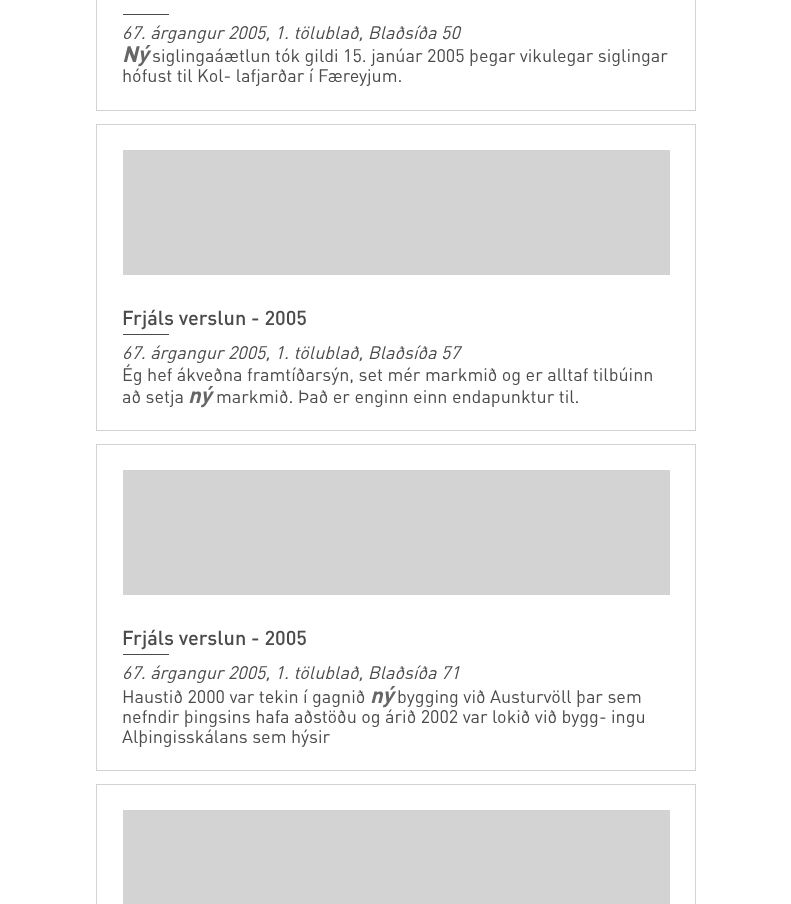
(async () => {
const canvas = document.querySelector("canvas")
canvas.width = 791
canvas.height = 904
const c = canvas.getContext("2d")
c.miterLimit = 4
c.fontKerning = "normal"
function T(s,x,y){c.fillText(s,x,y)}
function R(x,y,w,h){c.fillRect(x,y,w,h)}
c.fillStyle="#fff"
R(0,0,791,904)
c.strokeStyle="#d3d3d3"
c.strokeRect(96.5,-.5,599,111)
c.fillStyle="#4b4b4b"
R(123,14,46,1)
c.font="italic 18px DIN"
T("67. árgangur 2005, 1. tölublað, Blaðsíða 50",122,39)
c.font="italic bold 22px DIN"
c.fillStyle="#666"
T("Ný",122,62)
c.font="18px DIN"
c.fillStyle="#4b4b4b"
T("siglingaáætlun tók gildi 15. janúar 2005 þegar vikulegar siglingar",152,62)
T("hófust til Kol- lafjarðar í Færeyjum.",122,82)
c.strokeRect(96.5,124.5,599,306)
c.fillStyle="#d3d3d3"
R(123,150,547,125)
c.font="500 20px DIN"
c.fillStyle="#4b4b4b"
T("Frjáls verslun - 2005",122,325)
R(123,334,46,1)
c.font="italic 18px DIN"
T("67. árgangur 2005, 1. tölublað, Blaðsíða 57",122,359)
c.font="18px DIN"
T("Ég hef ákveðna framtíðarsýn, set mér markmið og er alltaf tilbúinn",122,381)
T("að setja",122,403)
c.font="italic bold 22px DIN"
c.fillStyle="#666"
T("ný",188,403)
c.font="18px DIN"
c.fillStyle="#4b4b4b"
T("markmið. Það er enginn einn endapunktur til.",216,403)
c.strokeRect(96.5,444.5,599,326)
c.fillStyle="#d3d3d3"
R(123,470,547,125)
c.font="500 20px DIN"
c.fillStyle="#4b4b4b"
T("Frjáls verslun - 2005",122,645)
R(123,654,46,1)
c.font="italic 18px DIN"
T("67. árgangur 2005, 1. tölublað, Blaðsíða 71",122,679)
c.font="18px DIN"
T("Haustið 2000 var tekin í gagnið",122,703)
c.font="italic bold 22px DIN"
c.fillStyle="#666"
T("ný",370,703)
c.font="18px DIN"
c.fillStyle="#4b4b4b"
T("bygging við Austurvöll þar sem",397,703)
T("nefndir þingsins hafa aðstöðu og árið 2002 var lokið við bygg-",122,723)
T("ingu",611,723)
T("Alþingisskálans sem hýsir",122,743)
c.strokeRect(96.5,784.5,599,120)
c.fillStyle="#d3d3d3"
R(123,810,547,94)
})()
